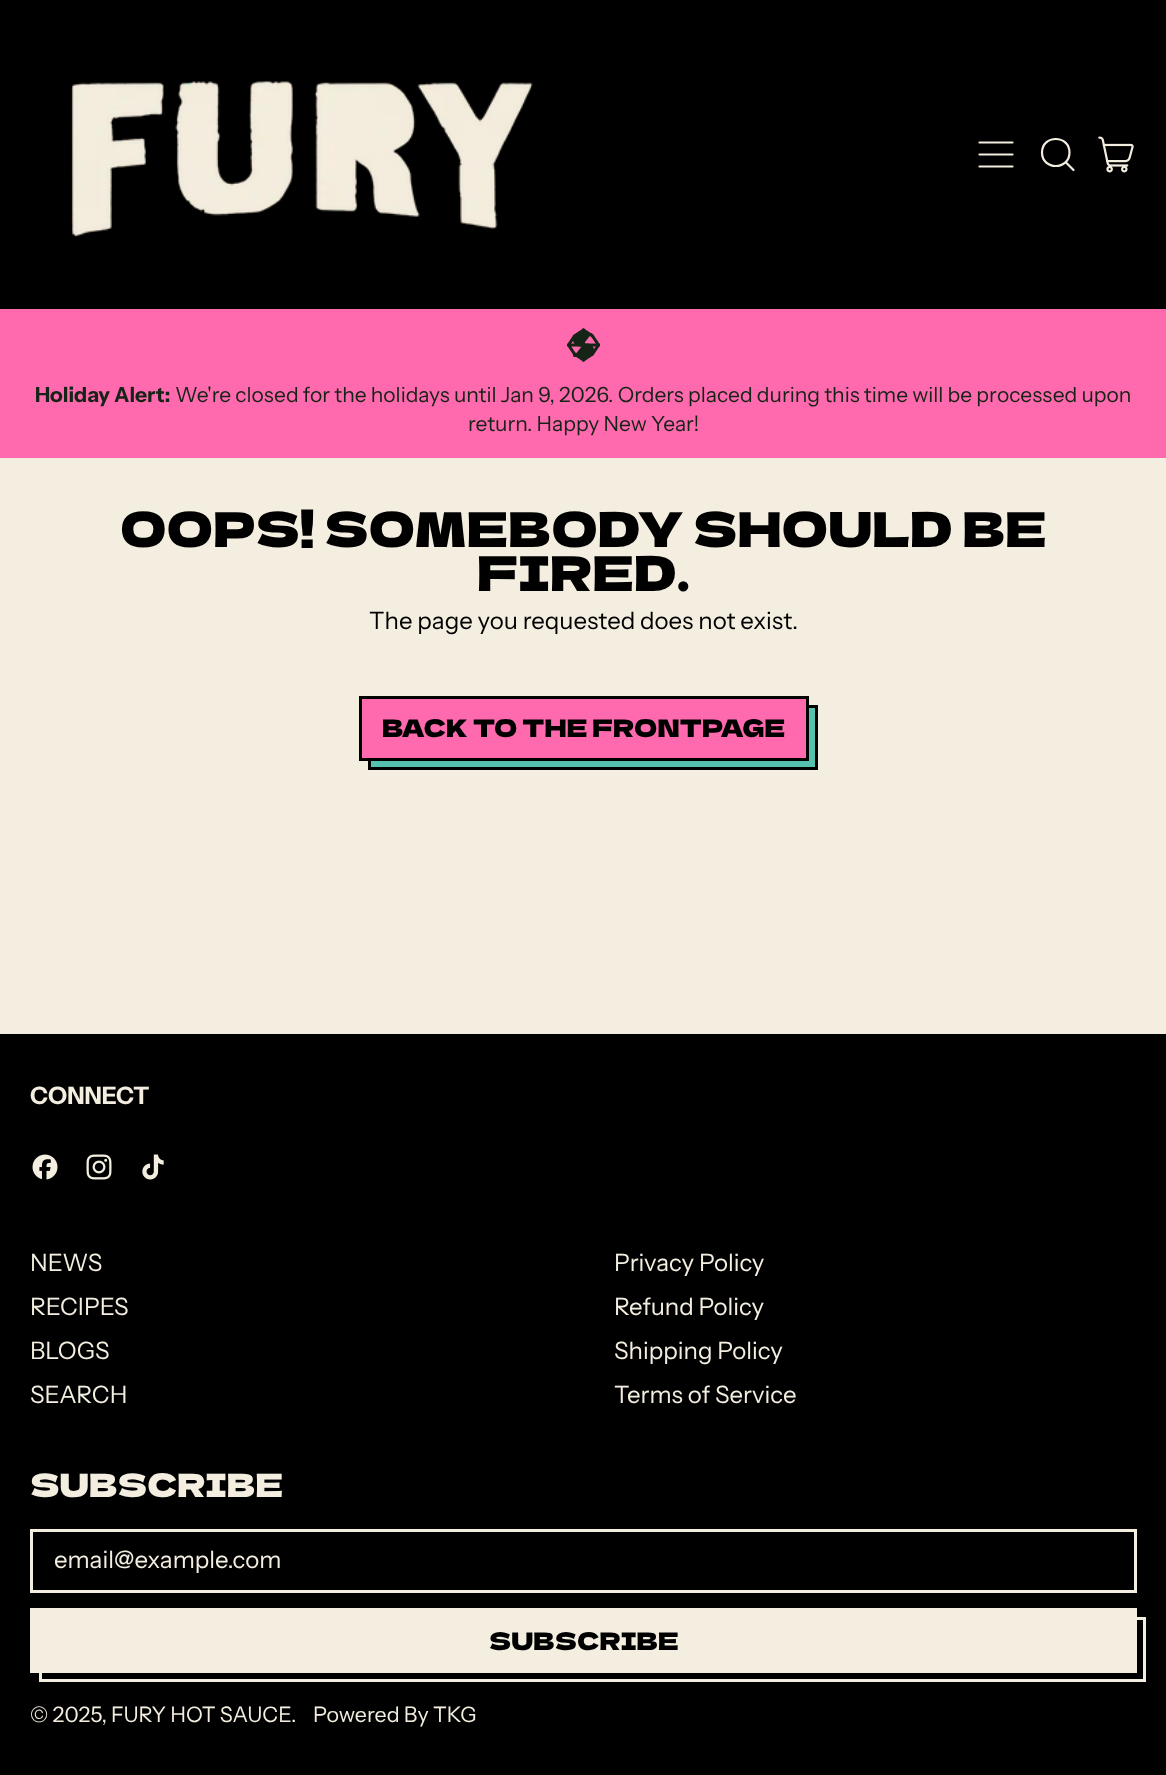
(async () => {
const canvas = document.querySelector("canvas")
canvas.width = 1166
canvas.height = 1775
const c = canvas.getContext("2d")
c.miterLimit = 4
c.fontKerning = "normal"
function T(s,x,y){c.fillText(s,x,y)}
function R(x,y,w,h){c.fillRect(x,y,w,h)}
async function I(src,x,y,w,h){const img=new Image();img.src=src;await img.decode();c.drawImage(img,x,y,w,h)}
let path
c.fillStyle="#f4eee0"
R(0,0,1166,1775)
c.fillStyle="#000"
R(0,0,1166,309)
await I("1.png",71,80,462,158)
path = new Path2D("M1012.5 166.5h-33m33-12h-33m33-12h-33")
c.strokeStyle="#f4eee0"
c.lineWidth=2.2
c.lineCap="round"
c.lineJoin="round"
c.stroke(path)
path = new Path2D("M1042 152.5c0 18 27.5 18 27.5 0c0-18-27.5-18-27.5 0zm31.5 17.5l-8-8")
c.stroke(path)
await I("2.png",1098,136,36,37)
c.fillStyle="#ff69ae"
R(0,309,1166,149)
await I("3.png",567,328,33,34)
c.font="bold 21px Instrument Sans"
c.fillStyle="#162317"
T("Holiday Alert:",35,402)
c.font="21px Instrument Sans"
T("We're closed for the holidays until Jan 9, 2026. Orders placed during this time will be processed upon",175,402)
T("return. Happy New Year!",468,431)
c.font="48px Dela Gothic One"
c.fillStyle="#000"
T("OOPS! SOMEBODY SHOULD BE",120,547)
T("FIRED.",477,591)
c.font="24px Instrument Sans"
T("The page you requested does not exist.",369,629)
c.fillStyle="#55c2b0"
c.beginPath()
c.rect(369.5,706.5,447,62)
c.fill()
c.strokeStyle="#000"
c.lineWidth=3
c.lineJoin="miter"
c.stroke()
c.fillStyle="#ff69ae"
c.beginPath()
c.rect(360.5,697.5,447,62)
c.fill()
c.stroke()
c.font="24px Dela Gothic One"
c.fillStyle="#000"
T("BACK TO THE FRONTPAGE",382,737)
R(0,1034,1166,741)
c.font="bold 24px Instrument Sans"
c.fillStyle="#f4eee0"
T("CONNECT",30,1104)
await I("4.png",32,1154,26,26)
await I("5.png",86,1154,26,26)
await I("6.png",142,1154,22,26)
c.font="24px Instrument Sans"
T("NEWS",30,1271)
T("RECIPES",30,1315)
T("BLOGS",30,1359)
T("SEARCH",30,1403)
T("Privacy Policy",614,1271)
T("Refund Policy",614,1315)
T("Shipping Policy",614,1359)
T("Terms of Service",614,1403)
c.font="32px Dela Gothic One"
T("SUBSCRIBE",30,1497)
c.strokeStyle="#f4eee0"
c.strokeRect(31.5,1530.5,1104,61)
c.font="24px Instrument Sans"
T("email@example.com",54,1568)
c.strokeRect(40.5,1618.5,1104,62)
R(30,1608,1107,65)
c.font="24px Dela Gothic One"
c.fillStyle="#000"
T("SUBSCRIBE",489,1650)
c.font="21.4px Instrument Sans"
c.fillStyle="#f4eee0"
T("© 2025,",30,1722)
T("FURY HOT SAUCE",111,1722)
T(".",291,1722)
T("Powered By TKG",313,1722)
})()
